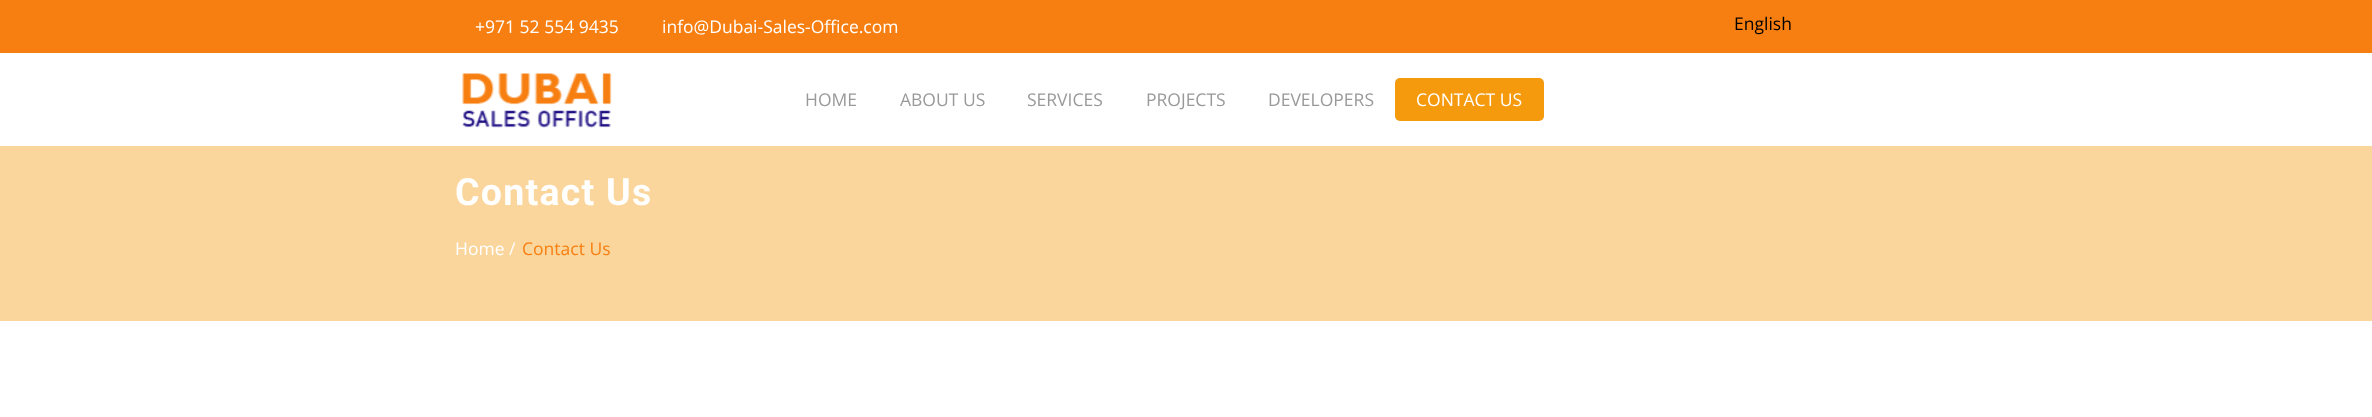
(async () => {
const canvas = document.querySelector("canvas")
canvas.width = 2372
canvas.height = 417
const c = canvas.getContext("2d")
c.miterLimit = 4
c.fontKerning = "normal"
function T(s,x,y){c.fillText(s,x,y)}
function R(x,y,w,h){c.fillRect(x,y,w,h)}
function Q(x,y,w,h,r){c.beginPath();c.roundRect(x,y,w,h,r);c.fill()}
async function I(src,x,y,w,h){const img=new Image();img.src=src;await img.decode();c.drawImage(img,x,y,w,h)}
c.fillStyle="#fff"
R(0,0,2372,417)
c.fillStyle="#f77f11"
R(0,0,2372,53)
c.font="17.5px Open Sans"
c.fillStyle="#fff"
T("+971 52 554 9435",475,33)
T("info@Dubai-Sales-Office.com",662,33)
c.fillStyle="#000"
T("English",1734,30)
await I("1.png",462,73,150,55)
c.fillStyle="#999"
T("HOME",805,106)
T("ABOUT US",900,106)
T("SERVICES",1027,106)
T("PROJECTS",1146,106)
T("DEVELOPERS",1268,106)
c.fillStyle="#f5990d"
Q(1395,78,149,43,5)
c.fillStyle="#fff"
T("CONTACT US",1416,106)
c.fillStyle="#fbd69c"
R(0,146,2372,175)
c.letterSpacing="1.25px"
c.font="bold 37.5px Roboto"
c.fillStyle="#fff"
T("Contact Us",455,205)
c.letterSpacing="0px"
c.font="17.5px Open Sans"
T("Home /",455,255)
c.fillStyle="#f77f11"
T("Contact Us",522,255)
})()
